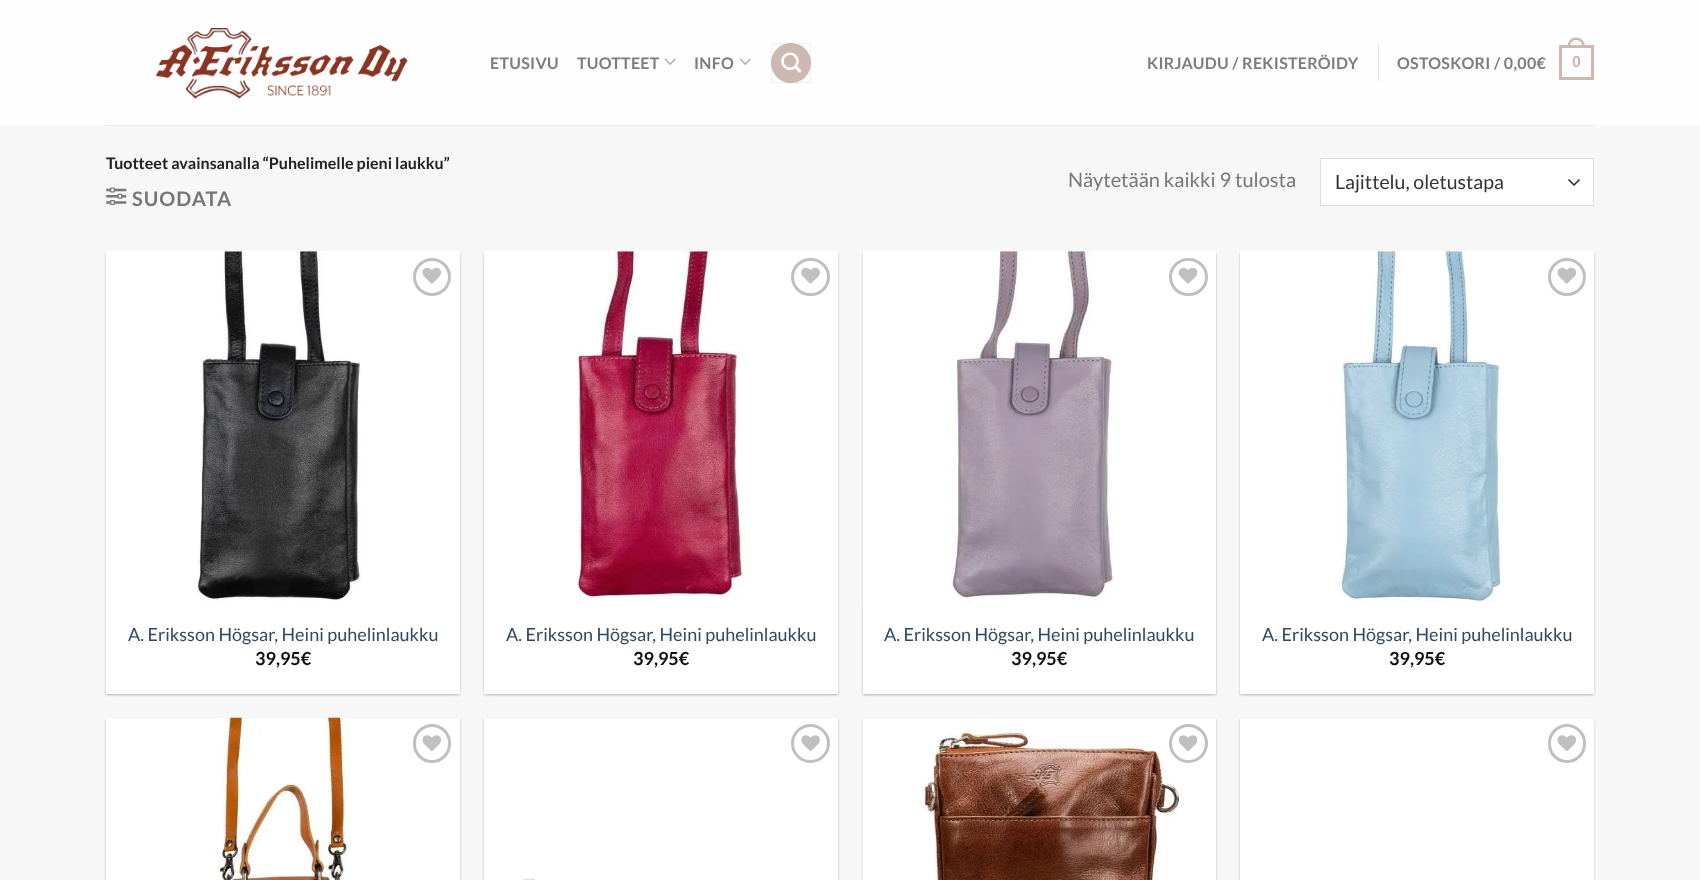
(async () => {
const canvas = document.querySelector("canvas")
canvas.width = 1700
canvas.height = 880
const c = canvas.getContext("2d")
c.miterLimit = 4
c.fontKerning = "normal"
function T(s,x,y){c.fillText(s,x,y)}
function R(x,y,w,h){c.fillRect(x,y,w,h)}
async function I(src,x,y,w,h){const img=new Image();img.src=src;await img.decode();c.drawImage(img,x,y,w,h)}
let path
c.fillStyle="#f7f7f7"
R(0,0,1700,880)
c.fillStyle="#fefefe"
R(0,0,1700,125)
await I("1.png",155,28,253,71)
c.letterSpacing="0.3px"
c.font="bold 16px Lato"
c.fillStyle="#7d7d7d"
T("ETUSIVU",490,69)
T("TUOTTEET",577,69)
await I("2.png",664,58,12,7)
T("INFO",694,69)
await I("2.png",739,58,12,7)
c.fillStyle="#ccb9b1"
c.beginPath()
c.arc(791,63,20,0,7)
c.fill()
c.strokeStyle="#0000000d"
c.strokeRect(771.5,43.5,39,39)
await I("3.png",781,52,21,21)
c.fillStyle="#7d7d7d"
T("KIRJAUDU / REKISTERÖIDY",1147,69)
c.fillStyle="#e5e5e5"
R(1378,44,1,37)
c.fillStyle="#7d7d7d"
T("OSTOSKORI / 0,00€",1397,69)
c.strokeStyle="#ccb9b1"
c.lineWidth=3
c.strokeRect(1560.5,46.5,32,32)
c.fillStyle="#ccb9b1"
path = new Path2D("M1576 37.5c6 0 9 4.5 9 10h-17.5c0-5.5 3-10 8.5-10zm0 2.5c4.5 0 6.5 3.5 6.5 7.5h-12.5c0-4 2-7.5 6-7.5z")
c.fill(path,"evenodd")
c.font="bold 16px Liberation Sans"
T("0",1572,67)
c.fillStyle="#eaeaea"
R(106,125,1488,1)
c.letterSpacing="0px"
c.font="bold 16px Lato"
c.fillStyle="#222"
T("Tuotteet avainsanalla “Puhelimelle pieni laukku”",106,169)
await I("4.png",106,187,21,18)
c.letterSpacing="1px"
c.font="bold 20px Lato"
c.fillStyle="#777"
T("SUODATA",132,206)
c.letterSpacing="0px"
c.font="20px Lato"
T("Näytetään kaikki 9 tulosta",1068,187)
c.fillStyle="#fff"
R(1321,159,272,46)
path = new Path2D("M1569 180l5 5l5-5")
c.strokeStyle="#333"
c.lineWidth=1.7
c.lineCap="round"
c.lineJoin="round"
c.stroke(path)
c.strokeStyle="#ddd"
c.lineWidth=1
c.lineJoin="miter"
c.strokeRect(1320.5,158.5,273,47)
c.font="19.5px Lato"
c.fillStyle="#333"
T("Lajittelu, oletustapa",1335,189)
c.fillStyle="#0000003d"
c.filter="blur(1px)"
c.beginPath()
c.rect(106,253,354,442)
c.fill()
c.filter="none"
c.fillStyle="#0000001f"
c.filter="blur(2px)"
c.beginPath()
c.rect(109,255,349,438)
c.fill()
c.filter="none"
c.fillStyle="#fff"
R(106,251,354,443)
await I("5.png",195,251,167,350)
c.beginPath()
c.arc(432,277,17.5,0,7)
c.strokeStyle="#c0c0c0"
c.lineWidth=3
c.stroke()
await I("6.png",422,267,20,17)
c.font="18px Lato"
c.fillStyle="#334862"
T("A. Eriksson Högsar, Heini puhelinlaukku",128,641)
c.font="bold 18px Lato"
c.fillStyle="#111"
T("39,95€",255,665)
c.fillStyle="#0000003d"
c.filter="blur(1px)"
c.beginPath()
c.rect(484,253,354,442)
c.fill()
c.filter="none"
c.fillStyle="#0000001f"
c.filter="blur(2px)"
c.beginPath()
c.rect(486,255,349,438)
c.fill()
c.filter="none"
c.fillStyle="#fff"
R(484,251,354,443)
await I("7.png",576,251,169,350)
c.beginPath()
c.roundRect(792.5,259.5,36,35,17.5)
c.stroke()
await I("8.png",801,267,19,17)
c.font="18px Lato"
c.fillStyle="#334862"
T("A. Eriksson Högsar, Heini puhelinlaukku",506,641)
c.font="bold 18px Lato"
c.fillStyle="#111"
T("39,95€",633,665)
c.fillStyle="#0000003d"
c.filter="blur(1px)"
c.beginPath()
c.rect(863,253,353,442)
c.fill()
c.filter="none"
c.fillStyle="#0000001f"
c.filter="blur(2px)"
c.beginPath()
c.rect(865,255,349,438)
c.fill()
c.filter="none"
c.fillStyle="#fff"
R(863,251,353,443)
await I("9.png",862,251,253,354)
c.beginPath()
c.roundRect(1170.5,259.5,36,35,17.5)
c.stroke()
await I("10.png",1178,267,20,17)
c.font="18px Lato"
c.fillStyle="#334862"
T("A. Eriksson Högsar, Heini puhelinlaukku",884,641)
c.font="bold 18px Lato"
c.fillStyle="#111"
T("39,95€",1011,665)
c.fillStyle="#0000003d"
c.filter="blur(1px)"
c.beginPath()
c.rect(1240,253,354,442)
c.fill()
c.filter="none"
c.fillStyle="#0000001f"
c.filter="blur(2px)"
c.beginPath()
c.rect(1243,255,348,438)
c.fill()
c.filter="none"
c.fillStyle="#fff"
R(1240,251,354,443)
await I("11.png",1340,251,164,354)
c.beginPath()
c.arc(1567,277,17.5,0,7)
c.stroke()
await I("6.png",1557,267,20,17)
c.font="18px Lato"
c.fillStyle="#334862"
T("A. Eriksson Högsar, Heini puhelinlaukku",1262,641)
c.font="bold 18px Lato"
c.fillStyle="#111"
T("39,95€",1389,665)
c.fillStyle="#0000003d"
c.filter="blur(1px)"
c.beginPath()
c.rect(106,719,354,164)
c.fill()
c.filter="none"
c.fillStyle="#fff"
R(106,718,354,162)
await I("12.png",217,717,133,163)
c.beginPath()
c.roundRect(414.5,725.5,35,36,17.5)
c.stroke()
await I("13.png",422,735,20,17)
c.fillStyle="#0000003d"
c.filter="blur(1px)"
c.beginPath()
c.rect(484,719,354,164)
c.fill()
c.filter="none"
c.fillStyle="#fff"
R(484,718,354,162)
c.beginPath()
c.arc(810.5,743.5,18,0,7)
c.stroke()
await I("14.png",801,735,19,17)
await I("15.png",518,876,21,4)
c.fillStyle="#ffffffcf"
R(518,876,21,4)
c.fillStyle="#0000003d"
c.filter="blur(1px)"
c.beginPath()
c.rect(863,719,353,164)
c.fill()
c.filter="none"
c.fillStyle="#fff"
R(863,718,353,162)
await I("16.png",862,720,320,160)
c.beginPath()
c.arc(1188.5,743.5,18,0,7)
c.stroke()
await I("17.png",1178,735,20,17)
c.fillStyle="#0000003d"
c.filter="blur(1px)"
c.beginPath()
c.rect(1240,719,354,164)
c.fill()
c.filter="none"
c.fillStyle="#fff"
R(1240,718,354,162)
c.beginPath()
c.roundRect(1549.5,725.5,35,36,17.5)
c.stroke()
await I("13.png",1557,735,20,17)
await I("18.png",1301,878,32,2)
c.fillStyle="#ffffffcf"
R(1301,878,32,2)
})()
